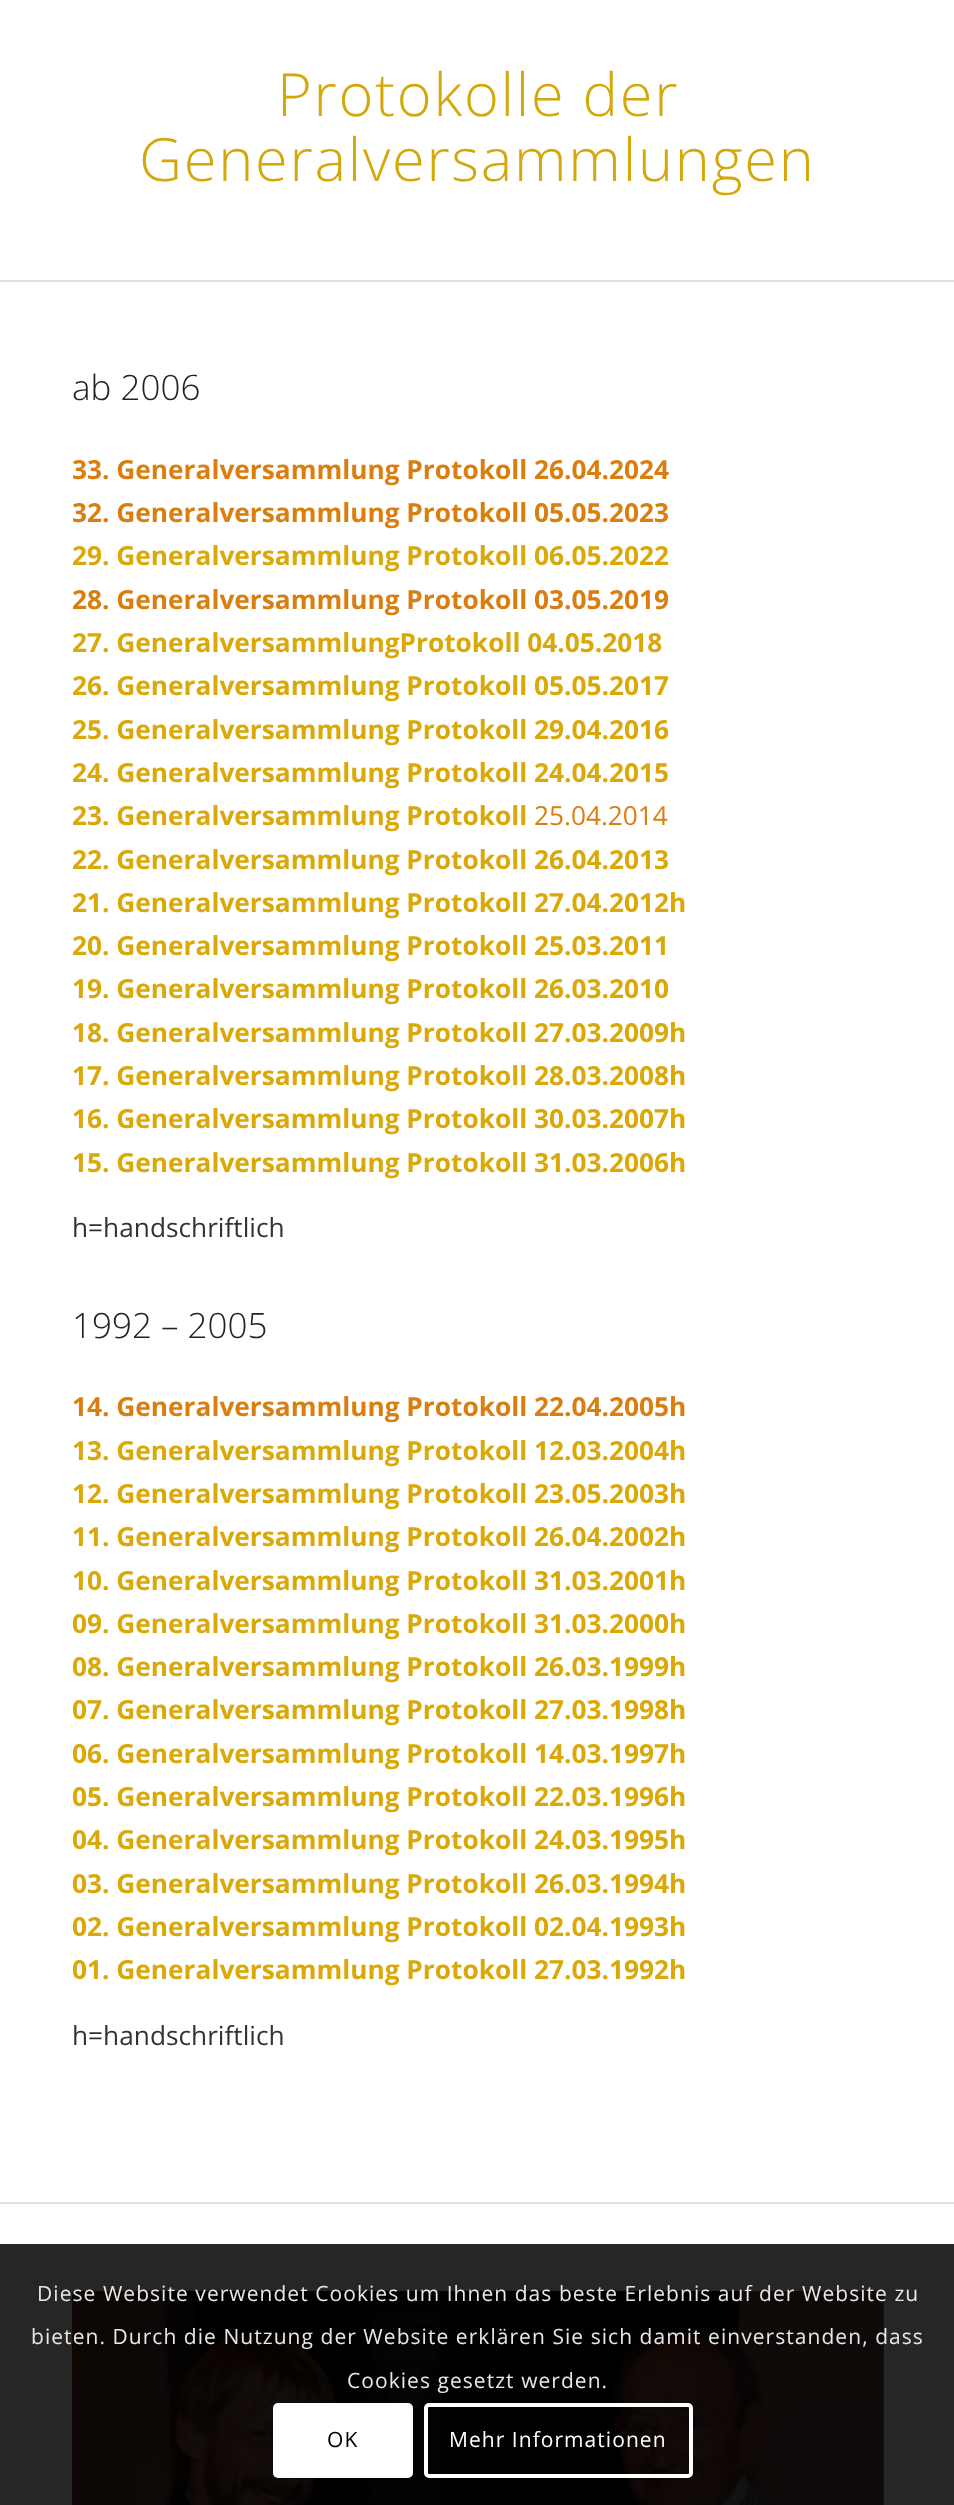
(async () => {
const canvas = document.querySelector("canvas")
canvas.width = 954
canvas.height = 2505
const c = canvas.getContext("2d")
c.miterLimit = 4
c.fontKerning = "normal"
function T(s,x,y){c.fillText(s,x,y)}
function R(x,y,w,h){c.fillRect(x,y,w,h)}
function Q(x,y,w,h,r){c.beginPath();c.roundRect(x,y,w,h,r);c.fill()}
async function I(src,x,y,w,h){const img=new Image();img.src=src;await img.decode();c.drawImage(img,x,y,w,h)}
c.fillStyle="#fff"
R(0,0,954,2505)
c.fillStyle="#262626"
R(0,2244,954,261)
c.letterSpacing="1.75px"
c.font="300 59.5px Open Sans"
c.fillStyle="#d4a808"
T("Protokolle der",277,116)
T("Generalversammlungen",139,181)
c.fillStyle="#e1e1e1"
R(0,280,954,2)
c.letterSpacing="0px"
c.font="300 35px Open Sans"
c.fillStyle="#222"
T("ab 2006",72,400)
c.font="bold 26.25px Open Sans"
c.fillStyle="#d97e0f"
T("33. Generalversammlung Protokoll 26.04.2024",72,479)
T("32. Generalversammlung Protokoll 05.05.2023",72,522)
c.fillStyle="#daa808"
T("29. Generalversammlung Protokoll 06.05.2022",72,565)
c.fillStyle="#d97e0f"
T("28. Generalversammlung Protokoll 03.05.2019",72,609)
c.fillStyle="#daa808"
T("27. GeneralversammlungProtokoll 04.05.2018",72,652)
T("26. Generalversammlung Protokoll 05.05.2017",72,695)
T("25. Generalversammlung Protokoll 29.04.2016",72,739)
T("24. Generalversammlung Protokoll 24.04.2015",72,782)
T("23. Generalversammlung Protokoll",72,825)
c.font="26.25px Open Sans"
c.fillStyle="#d97e0f"
T("25.04.2014",534,825)
c.font="bold 26.25px Open Sans"
c.fillStyle="#daa808"
T("22. Generalversammlung Protokoll 26.04.2013",72,869)
T("21. Generalversammlung Protokoll 27.04.2012h",72,912)
T("20. Generalversammlung Protokoll 25.03.2011",72,955)
T("19. Generalversammlung Protokoll 26.03.2010",72,998)
T("18. Generalversammlung Protokoll 27.03.2009h",72,1042)
T("17. Generalversammlung Protokoll 28.03.2008h",72,1085)
T("16. Generalversammlung Protokoll 30.03.2007h",72,1128)
T("15. Generalversammlung Protokoll 31.03.2006h",72,1172)
c.font="26.25px Open Sans"
c.fillStyle="#333"
T("h=handschriftlich",72,1237)
c.font="300 35px Open Sans"
c.fillStyle="#222"
T("1992 – 2005",72,1338)
c.font="bold 26.25px Open Sans"
c.fillStyle="#d97e0f"
T("14. Generalversammlung Protokoll 22.04.2005h",72,1416)
c.fillStyle="#daa808"
T("13. Generalversammlung Protokoll 12.03.2004h",72,1460)
T("12. Generalversammlung Protokoll 23.05.2003h",72,1503)
T("11. Generalversammlung Protokoll 26.04.2002h",72,1546)
T("10. Generalversammlung Protokoll 31.03.2001h",72,1590)
T("09. Generalversammlung Protokoll 31.03.2000h",72,1633)
T("08. Generalversammlung Protokoll 26.03.1999h",72,1676)
T("07. Generalversammlung Protokoll 27.03.1998h",72,1719)
T("06. Generalversammlung Protokoll 14.03.1997h",72,1763)
T("05. Generalversammlung Protokoll 22.03.1996h",72,1806)
T("04. Generalversammlung Protokoll 24.03.1995h",72,1849)
T("03. Generalversammlung Protokoll 26.03.1994h",72,1893)
T("02. Generalversammlung Protokoll 02.04.1993h",72,1936)
T("01. Generalversammlung Protokoll 27.03.1992h",72,1979)
c.font="26.25px Open Sans"
c.fillStyle="#333"
T("h=handschriftlich",72,2045)
c.fillStyle="#e1e1e1"
R(0,2202,954,2)
await I("1.png",72,2291,812,214)
c.fillStyle="#00000066"
Q(72,2291,812,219,5)
c.letterSpacing="1.05px"
c.font="21px Open Sans"
c.fillStyle="#e7e7e7"
T("Diese Website verwendet Cookies um Ihnen das beste Erlebnis auf der Website zu",37,2301)
T("bieten. Durch die Nutzung der Website erklären Sie sich damit einverstanden, dass",31,2344)
T("Cookies gesetzt werden.",347,2388)
c.fillStyle="#fff"
Q(273,2403,140,75,5)
c.fillStyle="#000"
T("OK",327,2447)
c.beginPath()
c.roundRect(426,2405,265,71,3)
c.strokeStyle="#fff"
c.lineWidth=4
c.stroke()
c.fillStyle="#fff"
T("Mehr Informationen",449,2447)
})()
